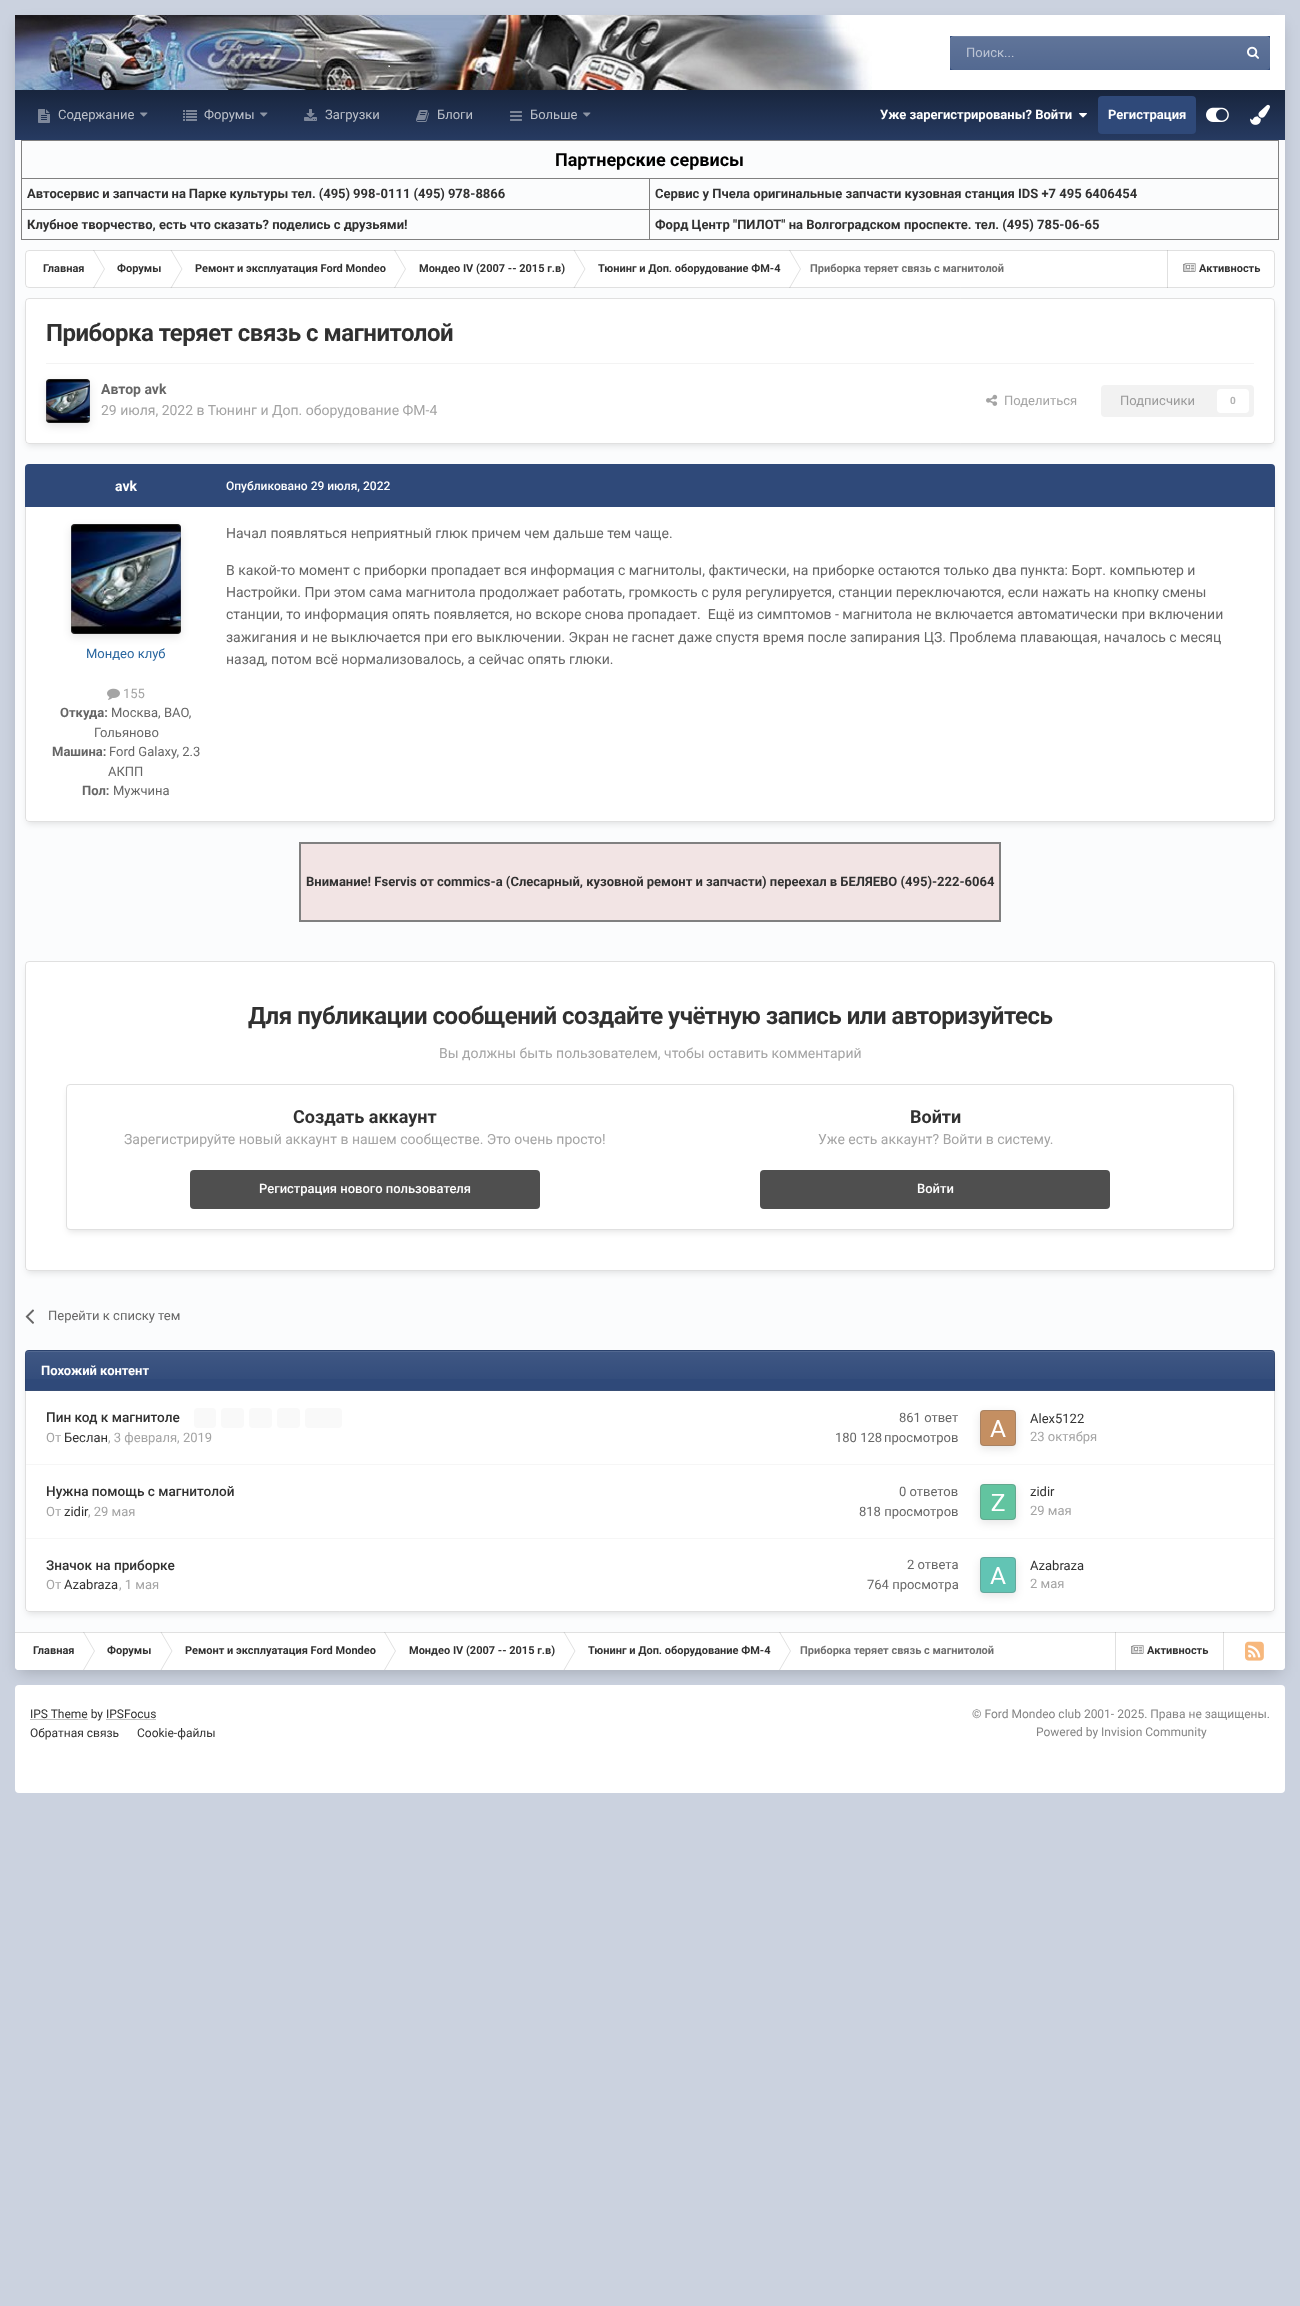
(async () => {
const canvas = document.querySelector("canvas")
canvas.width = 1300
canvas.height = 2306
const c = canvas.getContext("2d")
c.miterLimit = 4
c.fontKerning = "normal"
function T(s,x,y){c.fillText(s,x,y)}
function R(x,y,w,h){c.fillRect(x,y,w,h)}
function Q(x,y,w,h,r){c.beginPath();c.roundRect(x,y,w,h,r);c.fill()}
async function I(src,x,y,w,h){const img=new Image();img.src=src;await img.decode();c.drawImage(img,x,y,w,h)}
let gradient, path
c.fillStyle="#cbd2df"
R(0,0,1300,2306)
c.save()
path = new Path2D("M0 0h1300v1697h-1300zm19 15h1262c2 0 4 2 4 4v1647c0 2-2 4-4 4h-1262c-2 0-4-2-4-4v-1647c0-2 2-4 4-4z")
c.clip(path,"evenodd")
c.fillStyle="#00000033"
c.filter="blur(8px)"
c.beginPath()
c.rect(19,25,1262,1647)
c.fill()
c.filter="none"
c.restore()
c.fillStyle="#ffffffeb"
Q(15,15,1270,1655,4)
c.fillStyle="#fff"
R(872,15,413,75)
await I("1.png",15,15,857,75)
c.fillStyle="#354e7d"
R(950,36,320,34)
c.fillStyle="#536991"
Q(950,36,320,34,4)
gradient = c.createLinearGradient(1110,36,1110,70)
gradient.addColorStop(0,"#ffffff14")
gradient.addColorStop(1,"#ffffff00")
c.fillStyle = gradient
Q(950,36,320,34,4)
c.fillStyle="#ffffff1a"
path = new Path2D("M954 37h312c2 0 4 2 4 4v-1c0-2-2-4-4-4h-312c-2 0-4 2-4 4v1c0-2 2-4 4-4z")
c.fill(path)
c.font="13px Roboto"
c.fillStyle="#bdc5d5"
T("Поиск...",966,57)
await I("2.png",1247,46,12,13)
gradient = c.createLinearGradient(650,90,650,140)
gradient.addColorStop(0,"#18253d")
gradient.addColorStop(1,"#263a61")
c.fillStyle = gradient
R(15,90,1270,50)
await I("3.png",38,109,12,14)
c.fillStyle="#bcc1ca"
T("Содержание",58,119)
await I("4.png",140,112,8,5)
await I("5.png",183,110,14,11)
T("Форумы",204,119)
await I("4.png",260,112,8,5)
await I("6.png",304,109,13,12)
T("Загрузки",325,119)
await I("7.png",416,110,13,12)
T("Блоги",437,119)
await I("8.png",510,111,12,10)
T("Больше",530,119)
await I("4.png",583,112,8,5)
c.font="bold 13px Roboto"
c.fillStyle="#fff"
T("Уже зарегистрированы? Войти",880,119)
await I("9.png",1079,113,8,5)
c.fillStyle="#2f4979"
Q(1098,96,98,38,4)
c.fillStyle="#fff"
T("Регистрация",1108,119)
await I("10.png",1206,107,23,15)
await I("11.png",1250,104,20,21)
c.fillStyle="#808080"
R(21,140,1258,1)
R(1278,140,1,100)
R(21,239,1258,1)
R(21,140,1,100)
c.font="bold 18px Roboto"
c.fillStyle="#000"
T("Партнерские сервисы",555,166)
c.fillStyle="#808080"
R(649,178,630,1)
R(649,209,630,1)
R(649,209,1,31)
R(21,209,629,1)
R(649,178,1,32)
R(21,178,629,1)
c.wordSpacing="-0.25px"
c.font="bold 13px Roboto"
c.fillStyle="#313131"
T("Aвтосервис и запчасти на Парке культуры тел. (495) 998-0111 (495) 978-8866",27,198)
c.wordSpacing="0px"
T("Cервис у Пчела оригинальные запчасти кузовная станция IDS +7 495 6406454",655,198)
T("Клубное творчество, есть что сказать? поделись с друзьями!",27,229)
T("Форд Центр \"ПИЛОТ\" на Волгоградском проспекте. тел. (495) 785-06-65",655,229)
c.fillStyle="#fff"
Q(25,250,1250,38,4)
c.fillStyle="#e0e0e0"
path = new Path2D("M93 250h1l11 19h-1zm0 38h1l11-19h-1z")
c.fill(path)
path = new Path2D("M170.5 250h1l11 19h-1zm0 38h1l11-19h-1z")
c.fill(path)
path = new Path2D("M394 250h1l11 19h-1zm0 38h1l11-19h-1z")
c.fill(path)
path = new Path2D("M573.5 250h1l11 19h-1zm0 38h1l11-19h-1z")
c.fill(path)
path = new Path2D("M789 250h1l11 19h-1zm0 38h1l11-19h-1z")
c.fill(path)
R(1167,250,1,38)
await I("12.png",1183,263,13,9)
c.beginPath()
c.roundRect(25.5,250.5,1249,37,3.5)
c.strokeStyle="#66666633"
c.stroke()
c.font="bold 11px Roboto"
c.fillStyle="#313131"
T("Главная",43,272)
T("Форумы",117,272)
T("Ремонт и эксплуатация Ford Mondeo",195,272)
T("Мондео IV (2007 -- 2015 г.в)",419,272)
T("Тюнинг и Доп. оборудование ФМ-4",598,272)
c.fillStyle="#6f6f6f"
T("Приборка теряет связь с магнитолой",810,272)
c.fillStyle="#313131"
T("Активность",1199,272)
c.fillStyle="#0000001a"
c.filter="blur(3px)"
c.beginPath()
c.roundRect(27,304,1246,142,2)
c.fill()
c.filter="none"
c.fillStyle="#fff"
Q(25,298,1250,146,4)
c.beginPath()
c.roundRect(25.5,298.5,1249,145,3.5)
c.stroke()
c.letterSpacing="-0.48px"
c.font="bold 24px Roboto"
c.fillStyle="#313131"
T("Приборка теряет связь с магнитолой",46,341)
c.fillStyle="#f3f3f3"
R(46,363,1208,1)
await I("13.png",46,379,44,44)
c.save()
path = new Path2D("M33 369h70v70h-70zm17 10h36c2 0 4 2 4 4v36c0 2-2 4-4 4h-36c-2 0-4-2-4-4v-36c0-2 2-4 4-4z")
c.clip(path,"evenodd")
c.fillStyle="#0000001a"
c.filter="blur(4px)"
c.beginPath()
c.roundRect(46,382,44,44,4)
c.fill()
c.filter="none"
c.restore()
c.beginPath()
c.roundRect(46.5,379.5,43,43,3.5)
c.strokeStyle="#6666664d"
c.stroke()
c.letterSpacing="0px"
c.font="bold 14px Roboto"
c.fillStyle="#666"
T("Автор avk",101,394)
c.font="14px Roboto"
c.fillStyle="#a4a4a4"
T("29 июля, 2022 в Тюнинг и Доп. оборудование ФМ-4",101,415)
await I("14.png",986,394,12,12)
c.font="13px Roboto"
T("Поделиться",1004,405)
c.fillStyle="#f2f2f2"
Q(1101,385,153,32,4)
c.fillStyle="#999"
T("Подписчики",1120,405)
c.fillStyle="#fff"
Q(1217,389,32,24,4)
c.font="bold 10px Roboto"
c.fillStyle="#b3b3b3"
T("0",1230,404)
c.fillStyle="#0000001a"
c.filter="blur(3px)"
c.beginPath()
c.roundRect(27,470,1246,354,2)
c.fill()
c.filter="none"
c.fillStyle="#fff"
Q(25,464,1250,358,4)
c.beginPath()
c.roundRect(25.5,464.5,1249,357,3.5)
c.strokeStyle="#66666633"
c.stroke()
c.fillStyle="#2f4979"
c.beginPath()
c.roundRect(25,464,1250,43,[4,4,0,0])
c.fill()
c.font="bold 14px Roboto"
c.fillStyle="#fff"
T("avk",115,491)
await I("15.png",71,524,110,110)
c.save()
path = new Path2D("M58 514h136v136h-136zm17 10h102c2 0 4 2 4 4v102c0 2-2 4-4 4h-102c-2 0-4-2-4-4v-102c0-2 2-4 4-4z")
c.clip(path,"evenodd")
c.fillStyle="#0000001a"
c.filter="blur(4px)"
c.beginPath()
c.roundRect(71,527,110,110,4)
c.fill()
c.filter="none"
c.restore()
c.beginPath()
c.roundRect(71.5,524.5,109,109,3.5)
c.strokeStyle="#6666664d"
c.stroke()
c.font="13px Roboto"
c.fillStyle="#29669f"
T("Мондео клуб",86,658)
await I("16.png",107,688,13,12)
c.fillStyle="#a4a4a4"
T("155",123,698)
c.font="bold 13px Roboto"
c.fillStyle="#666"
T("Откуда:",60,717)
c.font="13px Roboto"
T("Москва, ВАО,",111,717)
T("Гольяново",94,737)
c.font="bold 13px Roboto"
T("Машина:",52,756)
c.font="13px Roboto"
T("Ford Galaxy, 2.3",109,756)
T("АКПП",108,776)
c.font="bold 13px Roboto"
T("Пол:",82,795)
c.font="13px Roboto"
T("Мужчина",113,795)
c.font="500 12px Roboto"
c.fillStyle="#fff"
T("Опубликовано 29 июля, 2022",226,490)
c.font="14px Roboto"
c.fillStyle="#666"
T("Начал появляться неприятный глюк причем чем дальше тем чаще.",226,538)
T("В какой-то момент с приборки пропадает вся информация с магнитолы, фактически, на приборке остаются только два пункта: Борт. компьютер и",226,575)
T("Настройки. При этом сама магнитола продолжает работать, громкость с руля регулируется, станции переключаются, если нажать на кнопку смены",226,597)
T("станции, то информация опять появляется, но вскоре снова пропадает.  Ещё из симптомов - магнитола не включается автоматически при включении",226,619)
T("зажигания и не выключается при его выключении. Экран не гаснет даже спустя время после запирания ЦЗ. Проблема плавающая, началось с месяц",226,642)
T("назад, потом всё нормализовалось, а сейчас опять глюки.",226,664)
c.fillStyle="#f2e4e4"
R(301,844,698,76)
c.fillStyle="#808080"
R(299,842,702,2)
R(999,842,2,80)
R(299,920,702,2)
R(299,842,2,80)
c.font="bold 13px Roboto"
c.fillStyle="#313131"
T("Внимание! Fservis от commics-a (Слесарный, кузовной ремонт и запчасти) переехал в БЕЛЯЕВО (495)-222-6064",306,886)
c.fillStyle="#0000001a"
c.filter="blur(3px)"
c.beginPath()
c.roundRect(27,967,1246,306,2)
c.fill()
c.filter="none"
c.fillStyle="#fff"
Q(25,961,1250,310,4)
c.beginPath()
c.roundRect(25.5,961.5,1249,309,3.5)
c.strokeStyle="#66666633"
c.stroke()
c.letterSpacing="-0.48px"
c.font="bold 24px Roboto"
c.fillStyle="#313131"
T("Для публикации сообщений создайте учётную запись или авторизуйтесь",248,1024)
c.letterSpacing="0px"
c.font="14px Roboto"
c.fillStyle="#a4a4a4"
T("Вы должны быть пользователем, чтобы оставить комментарий",439,1058)
c.fillStyle="#0000001a"
c.filter="blur(3px)"
c.beginPath()
c.roundRect(68,1090,1164,142,2)
c.fill()
c.filter="none"
c.fillStyle="#fff"
c.beginPath()
c.roundRect(66.5,1084.5,1167,145,3.5)
c.fill()
c.strokeStyle="#e0e0e0"
c.stroke()
c.font="bold 18px Roboto"
c.fillStyle="#313131"
T("Создать аккаунт",293,1123)
c.font="14px Roboto"
c.fillStyle="#a4a4a4"
T("Зарегистрируйте новый аккаунт в нашем сообществе. Это очень просто!",124,1144)
c.fillStyle="#4f4f4f"
Q(190,1170,350,39,4)
c.font="500 13px Roboto"
c.fillStyle="#fff"
T("Регистрация нового пользователя",259,1193)
c.font="bold 18px Roboto"
c.fillStyle="#313131"
T("Войти",910,1123)
c.font="14px Roboto"
c.fillStyle="#a4a4a4"
T("Уже есть аккаунт? Войти в систему.",818,1144)
c.fillStyle="#4f4f4f"
Q(760,1170,350,39,4)
c.font="500 13px Roboto"
c.fillStyle="#fff"
T("Войти",917,1193)
await I("17.png",25,1309,9,15)
c.font="13px Roboto"
c.fillStyle="#666"
T("Перейти к списку тем",48,1320)
c.fillStyle="#0000001a"
c.filter="blur(3px)"
c.beginPath()
c.roundRect(27,1356,1246,258,2)
c.fill()
c.filter="none"
c.fillStyle="#fff"
Q(25,1350,1250,262,4)
c.beginPath()
c.roundRect(25.5,1350.5,1249,261,3.5)
c.strokeStyle="#66666633"
c.stroke()
c.fillStyle="#2f4979"
c.beginPath()
c.roundRect(25,1350,1250,41,[4,4,0,0])
c.fill()
gradient = c.createLinearGradient(650,1351,650,1390)
gradient.addColorStop(0,"#ffffff14")
gradient.addColorStop(1,"#ffffff00")
c.fillStyle = gradient
R(25,1351,1250,28)
gradient = c.createLinearGradient(650,1390,650,1429)
gradient.addColorStop(0,"#405884")
gradient.addColorStop(1,"#2f4979")
c.fillStyle = gradient
R(25,1390,1250,1)
c.fillStyle="#526890"
path = new Path2D("M29 1352h1242c2 0 3 1 3 3v-1c0-2-1-3-3-3h-1242c-2 0-3 1-3 3v1c0-2 1-3 3-3z")
c.fill(path)
c.beginPath()
c.roundRect(25.5,1350.5,1249,40,[3.5,3.5,0,0])
c.strokeStyle="#0000001a"
c.stroke()
c.font="bold 13px Roboto"
c.fillStyle="#fff"
T("Похожий контент",41,1375)
c.fillStyle="#f6f6f6"
R(26,1464,1248,1)
c.font="500 13.6px Roboto"
c.fillStyle="#313131"
T("Пин код к магнитоле",46,1422)
c.fillStyle="#f9f9f9"
Q(194,1408,22,20,4)
Q(221,1408,23,20,4)
Q(249,1408,23,20,4)
Q(277,1408,23,20,4)
Q(305,1408,37,20,4)
c.font="13px Roboto"
c.fillStyle="#a4a4a4"
T("От",46,1442)
c.fillStyle="#313131"
T("Беслан",64,1442)
c.fillStyle="#a4a4a4"
T(", 3 февраля, 2019",108,1442)
c.fillStyle="#666"
T("861 ответ",899,1422)
T("180 128",835,1442)
T("просмотров",884,1442)
await I("18.png",980,1410,36,36)
c.save()
path = new Path2D("M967 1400h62v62h-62zm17 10h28c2 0 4 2 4 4v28c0 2-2 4-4 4h-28c-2 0-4-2-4-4v-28c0-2 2-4 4-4z")
c.clip(path,"evenodd")
c.fillStyle="#0000001a"
c.filter="blur(4px)"
c.beginPath()
c.roundRect(980,1413,36,36,4)
c.fill()
c.filter="none"
c.restore()
c.beginPath()
c.roundRect(980.5,1410.5,35,35,3.5)
c.strokeStyle="#6666664d"
c.stroke()
c.fillStyle="#313131"
T("Alex5122",1030,1423)
c.fillStyle="#a4a4a4"
T("23 октября",1030,1441)
c.fillStyle="#f6f6f6"
R(26,1538,1248,1)
c.font="500 13.6px Roboto"
c.fillStyle="#313131"
T("Нужна помощь с магнитолой",46,1496)
c.font="13px Roboto"
c.fillStyle="#a4a4a4"
T("От",46,1516)
c.fillStyle="#313131"
T("zidir",64,1516)
c.fillStyle="#a4a4a4"
T(", 29 мая",88,1516)
c.fillStyle="#666"
T("0 ответов",899,1496)
T("818 просмотров",859,1516)
await I("19.png",980,1484,36,36)
c.save()
path = new Path2D("M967 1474h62v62h-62zm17 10h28c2 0 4 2 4 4v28c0 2-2 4-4 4h-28c-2 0-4-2-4-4v-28c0-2 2-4 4-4z")
c.clip(path,"evenodd")
c.fillStyle="#0000001a"
c.filter="blur(4px)"
c.beginPath()
c.roundRect(980,1487,36,36,4)
c.fill()
c.filter="none"
c.restore()
c.beginPath()
c.roundRect(980.5,1484.5,35,35,3.5)
c.stroke()
c.fillStyle="#313131"
T("zidir",1030,1496)
c.fillStyle="#a4a4a4"
T("29 мая",1030,1515)
c.font="500 13.6px Roboto"
c.fillStyle="#313131"
T("Значок на приборке",46,1570)
c.font="13px Roboto"
c.fillStyle="#a4a4a4"
T("От",46,1589)
c.fillStyle="#313131"
T("Azabraza",64,1589)
c.fillStyle="#a4a4a4"
T(", 1 мая",119,1589)
c.fillStyle="#666"
T("2 ответа",907,1569)
T("764 просмотра",867,1589)
await I("20.png",980,1557,36,36)
c.save()
path = new Path2D("M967 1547h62v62h-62zm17 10h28c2 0 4 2 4 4v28c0 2-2 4-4 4h-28c-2 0-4-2-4-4v-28c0-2 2-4 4-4z")
c.clip(path,"evenodd")
c.fillStyle="#0000001a"
c.filter="blur(4px)"
c.beginPath()
c.roundRect(980,1560,36,36,4)
c.fill()
c.filter="none"
c.restore()
c.beginPath()
c.roundRect(980.5,1557.5,35,35,3.5)
c.stroke()
c.fillStyle="#313131"
T("Azabraza",1030,1570)
c.fillStyle="#a4a4a4"
T("2 мая",1030,1588)
c.fillStyle="#fff"
c.beginPath()
c.roundRect(15,1632,1270,38,[0,0,4,4])
c.fill()
c.fillStyle="#e0e0e0"
path = new Path2D("M83 1632h1l11 19h-1zm0 38h1l11-19h-1z")
c.fill(path)
path = new Path2D("M160.5 1632h1l11 19h-1zm0 38h1l11-19h-1z")
c.fill(path)
path = new Path2D("M384 1632h1l11 19h-1zm0 38h1l11-19h-1z")
c.fill(path)
path = new Path2D("M563.5 1632h1l11 19h-1zm0 38h1l11-19h-1z")
c.fill(path)
path = new Path2D("M779 1632h1l11 19h-1zm0 38h1l11-19h-1z")
c.fill(path)
R(1115,1632,1,38)
R(1223,1632,1,38)
c.fillStyle="#66666633"
R(15,1632,1270,1)
c.font="bold 11px Roboto"
c.fillStyle="#313131"
T("Главная",33,1654)
T("Форумы",107,1654)
T("Ремонт и эксплуатация Ford Mondeo",185,1654)
T("Мондео IV (2007 -- 2015 г.в)",409,1654)
T("Тюнинг и Доп. оборудование ФМ-4",588,1654)
c.fillStyle="#6f6f6f"
T("Приборка теряет связь с магнитолой",800,1654)
await I("12.png",1131,1645,13,9)
c.fillStyle="#313131"
T("Активность",1147,1654)
await I("21.png",1245,1641,19,20)
c.fillStyle="#fff"
Q(15,1685,1270,108,4)
c.fillStyle="#c2c2c2"
R(30,1719,58,1)
c.font="12px Roboto"
c.fillStyle="#313131"
T("IPS Theme by IPSFocus",30,1718)
c.fillStyle="#c2c2c2"
R(106,1719,50,1)
c.fillStyle="#313131"
T("Обратная связь",30,1737)
T("Cookie-файлы",137,1737)
c.fillStyle="#858585"
T("© Ford Mondeo club 2001- 2025. Права не защищены.",972,1718)
T("Powered by Invision Community",1036,1736)
})()
